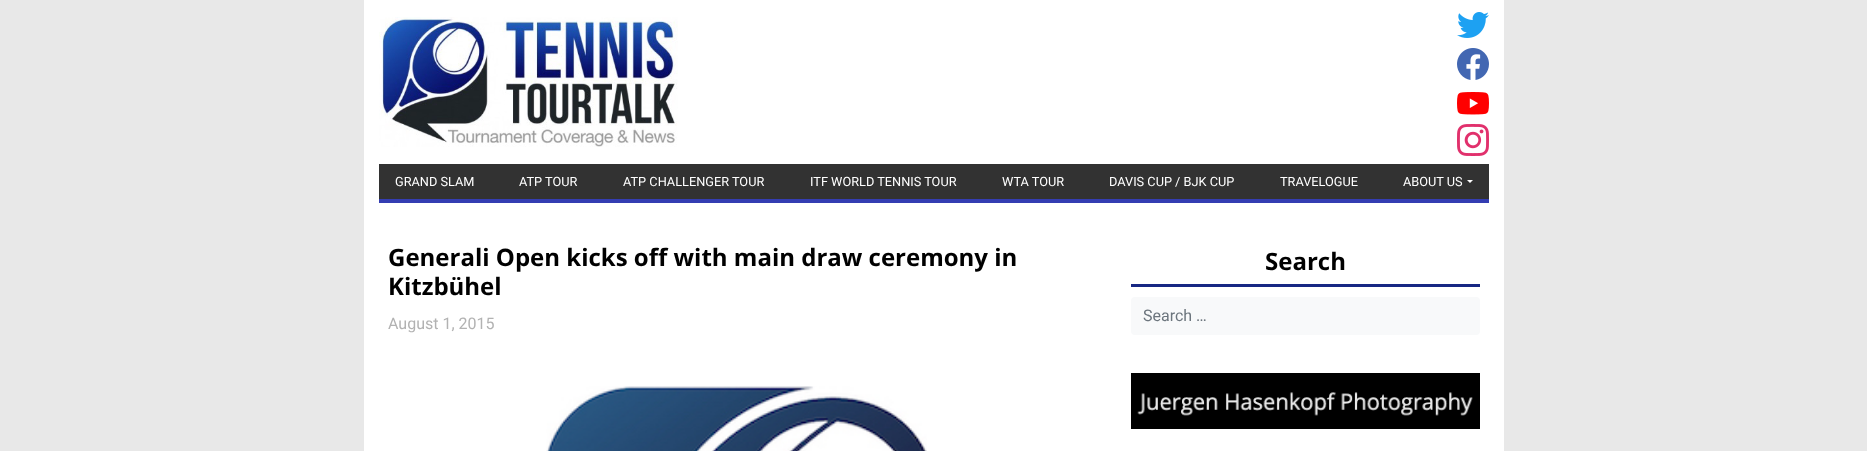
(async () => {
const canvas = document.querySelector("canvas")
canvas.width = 1867
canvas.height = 451
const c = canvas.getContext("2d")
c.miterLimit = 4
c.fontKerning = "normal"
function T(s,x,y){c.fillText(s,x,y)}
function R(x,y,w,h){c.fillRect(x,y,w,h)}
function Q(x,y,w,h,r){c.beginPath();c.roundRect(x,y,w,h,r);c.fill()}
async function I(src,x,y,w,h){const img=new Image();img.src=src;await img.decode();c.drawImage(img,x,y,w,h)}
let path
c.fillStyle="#e8e8e8"
R(0,0,1867,451)
c.fillStyle="#fff"
R(364,0,1140,451)
await I("1.png",379,17,299,130)
await I("2.png",1457,12,32,26)
await I("3.png",1457,48,32,32)
await I("4.png",1457,92,32,23)
await I("5.png",1457,124,32,32)
c.fillStyle="#323232"
R(379,164,1110,35)
c.fillStyle="#343db2"
R(379,199,1110,4)
c.font="12.75px Roboto"
c.fillStyle="#fff"
T("GRAND SLAM",395,186)
T("ATP TOUR",519,186)
T("ATP CHALLENGER TOUR",623,186)
T("ITF WORLD TENNIS TOUR",810,186)
T("WTA TOUR",1002,186)
T("DAVIS CUP / BJK CUP",1109,186)
T("TRAVELOGUE",1280,186)
T("ABOUT US",1403,186)
path = new Path2D("M1467 180h6l-3 3z")
c.fill(path)
c.font="bold 24px Open Sans"
c.fillStyle="#000"
T("Generali Open kicks off with main draw ceremony in",388,266)
T("Kitzbühel",388,295)
c.font="16px Roboto"
c.fillStyle="#b2b2b2"
T("August 1, 2015",388,329)
await I("6.png",546,386,381,65)
c.fillStyle="#172783"
R(1131,284,349,3)
c.font="bold 24px Open Sans"
c.fillStyle="#000"
T("Search",1265,270)
c.fillStyle="#f8f9fa"
Q(1131,297,349,38,4)
c.font="16px Roboto"
c.fillStyle="#6c757d"
T("Search …",1143,321)
await I("7.png",1131,373,349,56)
})()
